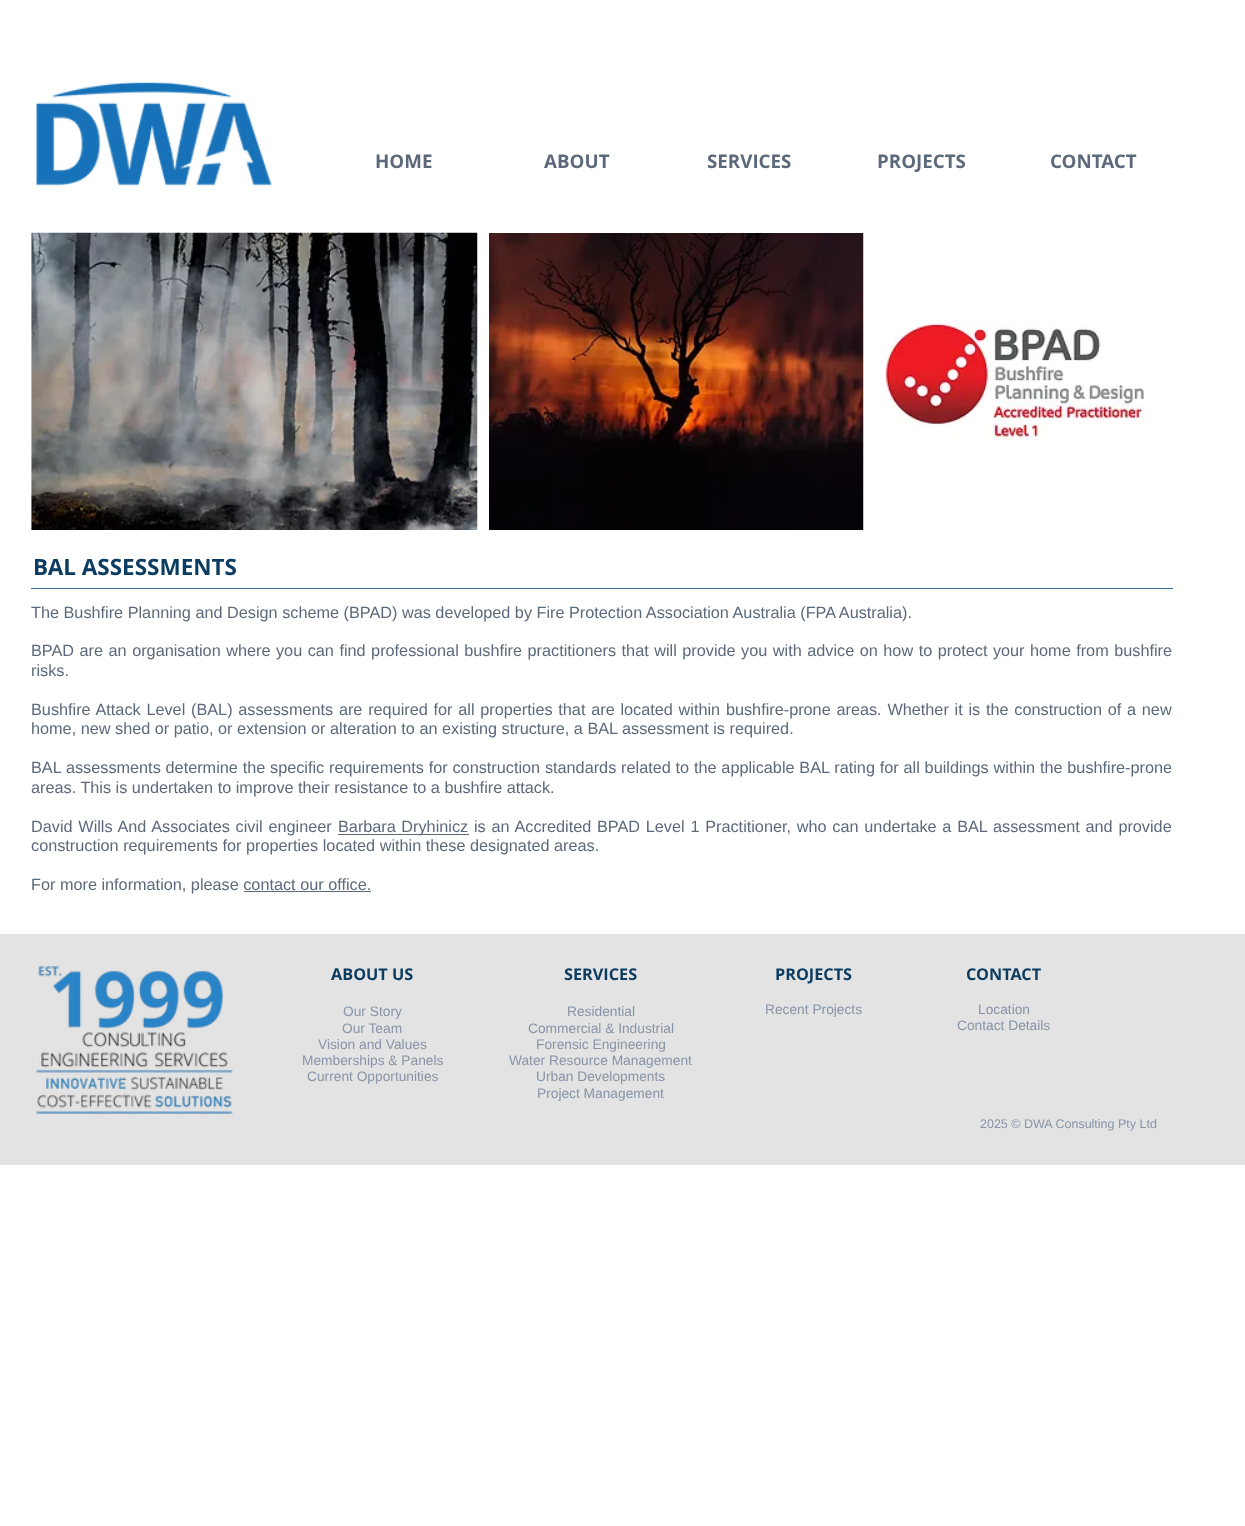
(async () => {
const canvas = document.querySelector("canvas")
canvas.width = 1245
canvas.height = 1526
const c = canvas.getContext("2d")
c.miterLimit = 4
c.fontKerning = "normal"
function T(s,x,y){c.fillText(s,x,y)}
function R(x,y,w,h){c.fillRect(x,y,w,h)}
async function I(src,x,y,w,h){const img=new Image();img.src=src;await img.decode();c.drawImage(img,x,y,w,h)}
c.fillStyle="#fff"
R(0,0,1245,1526)
await I("1.png",36,82,236,104)
c.font="bold 18.75px Open Sans"
c.fillStyle="#5c697b"
T("HOME",375,168)
T("ABOUT",544,168)
T("SERVICES",707,168)
T("PROJECTS",877,168)
T("CONTACT",1050,168)
await I("2.png",31,232,447,298)
await I("3.png",489,233,375,297)
await I("4.png",883,320,261,120)
c.font="bold 22.5px Open Sans"
c.fillStyle="#0c3c60"
T("BAL ASSESSMENTS",33,575)
c.fillStyle="#39729b"
R(31,588,1142,1)
c.font="16.25px Liberation Sans"
c.fillStyle="#5c697b"
T("The Bushfire Planning and Design scheme (BPAD) was developed by Fire Protection Association Australia (FPA Australia).",31,618)
c.wordSpacing="1px"
T("BPAD are an organisation where you can find professional bushfire practitioners that will provide you with advice on how to protect your home from bushfire",31,656)
c.wordSpacing="0px"
T("risks.",31,676)
c.wordSpacing="1.25px"
T("Bushfire Attack Level (BAL) assessments are required for all properties that are located within bushfire-prone areas. Whether it is the construction of a new",31,715)
c.wordSpacing="0px"
T("home, new shed or patio, or extension or alteration to an existing structure, a BAL assessment is required.",31,734)
c.wordSpacing="0.3px"
T("BAL assessments determine the specific requirements for construction standards related to the applicable BAL rating for all buildings within the bushfire-prone",31,773)
c.wordSpacing="0px"
T("areas. This is undertaken to improve their resistance to a bushfire attack.",31,793)
c.wordSpacing="1.25px"
T("David Wills And Associates civil engineer",31,832)
R(338,834,131,1)
c.wordSpacing="1px"
T("Barbara Dryhinicz",338,832)
c.wordSpacing="1.25px"
T("is an Accredited BPAD Level 1 Practitioner, who can undertake a BAL assessment and provide",474,832)
c.wordSpacing="0px"
T("construction requirements for properties located within these designated areas.",31,851)
T("For more information, please contact our office.",31,890)
R(244,891,127,1)
c.fillStyle="#e3e3e3"
R(0,934,1245,231)
await I("5.png",36,966,197,148)
c.font="bold 16.25px Open Sans"
c.fillStyle="#0c3c60"
T("ABOUT US",331,980)
c.font="13.75px Liberation Sans"
c.fillStyle="#8794a7"
T("Our Story",343,1016)
T("Our Team",342,1033)
T("Vision and Values",318,1049)
T("Memberships & Panels",302,1065)
T("Current Opportunities",307,1081)
c.font="bold 16.25px Open Sans"
c.fillStyle="#0c3c60"
T("SERVICES",564,980)
c.font="13.75px Liberation Sans"
c.fillStyle="#8794a7"
T("Residential",567,1016)
T("Commercial & Industrial",528,1033)
T("Forensic Engineering",536,1049)
T("Water Resource Management",509,1065)
T("Urban Developments",536,1081)
T("Project Management",537,1098)
c.font="bold 16.25px Open Sans"
c.fillStyle="#0c3c60"
T("PROJECTS",775,980)
c.font="13.75px Liberation Sans"
c.fillStyle="#8794a7"
T("Recent Projects",765,1014)
c.font="bold 16.25px Open Sans"
c.fillStyle="#0c3c60"
T("CONTACT",966,980)
c.font="13.75px Liberation Sans"
c.fillStyle="#8794a7"
T("Location",978,1014)
T("Contact Details",957,1030)
c.font="12.5px Liberation Sans"
T("2025 © DWA Consulting Pty Ltd",980,1128)
})()
